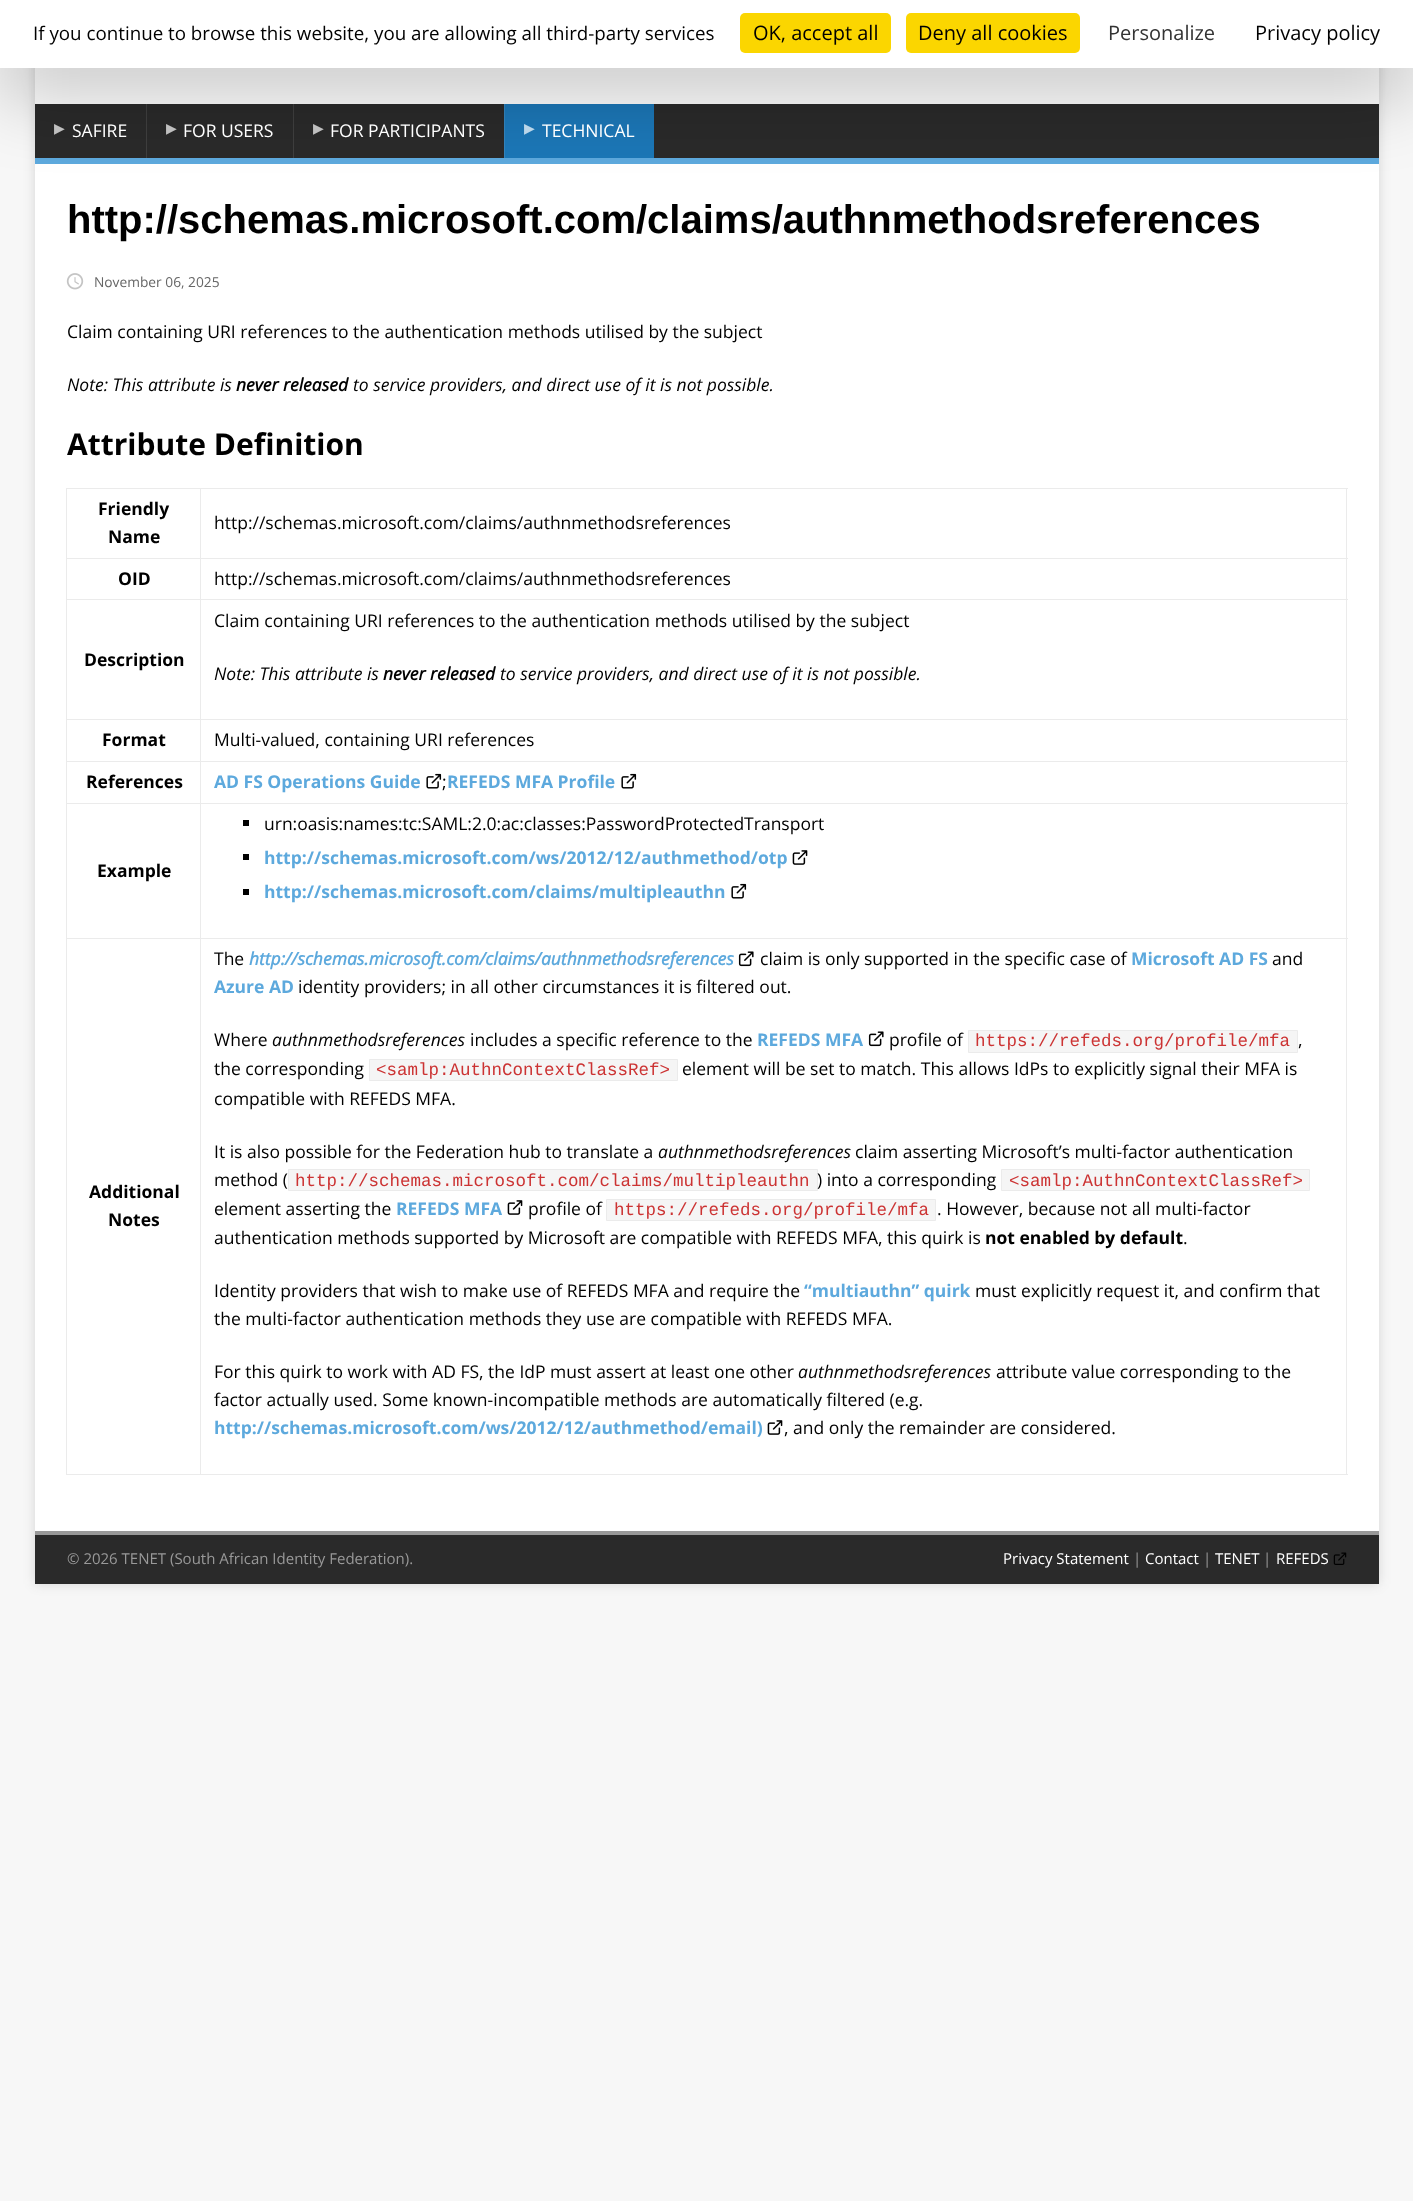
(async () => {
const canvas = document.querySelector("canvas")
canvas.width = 1413
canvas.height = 2201
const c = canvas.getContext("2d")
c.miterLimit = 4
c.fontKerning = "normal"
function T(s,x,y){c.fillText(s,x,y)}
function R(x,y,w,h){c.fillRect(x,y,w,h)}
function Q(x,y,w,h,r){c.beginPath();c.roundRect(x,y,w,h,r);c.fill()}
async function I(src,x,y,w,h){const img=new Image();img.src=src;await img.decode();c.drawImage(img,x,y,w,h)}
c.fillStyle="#f7f7f7"
R(0,0,1413,2201)
c.fillStyle="#3232322b"
c.filter="blur(6px)"
c.beginPath()
c.rect(35,31,1344,1553)
c.fill()
c.filter="none"
c.fillStyle="#fff"
R(35,68,1344,36)
c.fillStyle="#5da9dd"
R(35,158,1344,6)
c.fillStyle="#2a2a2a"
R(35,104,1344,54)
c.fillStyle="#3f3f3f"
R(146,104,1,54)
R(293,104,1,54)
c.fillStyle="#1c77b7"
R(505,104,149,54)
c.fillStyle="#3385be"
R(504,104,1,54)
c.fillStyle="#fff"
R(35,164,1344,1367)
c.fillStyle="#00000040"
c.filter="blur(37.5px)"
c.beginPath()
c.rect(0,25,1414,68)
c.fill()
c.filter="none"
c.fillStyle="#fff"
R(0,0,1413,68)
c.font="18.75px Open Sans"
c.fillStyle="#000"
T("If you continue to browse this website, you are allowing all third-party services",33,40)
c.fillStyle="#fbd600"
Q(740,13,151,40,5)
c.font="20px Open Sans"
c.fillStyle="#000"
T("OK, accept all",753,40)
c.fillStyle="#fbd600"
Q(906,13,174,40,5)
c.fillStyle="#000"
T("Deny all cookies",918,40)
c.fillStyle="#333"
T("Personalize",1108,40)
c.fillStyle="#000"
T("Privacy policy",1255,40)
c.font="14px DejaVu Sans"
c.fillStyle="#bfbfbf"
T("▶",54,133)
c.font="17.5px Open Sans"
c.fillStyle="#fff"
T("SAFIRE",72,137)
c.font="14px DejaVu Sans"
c.fillStyle="#bfbfbf"
T("▶",166,133)
c.font="17.5px Open Sans"
c.fillStyle="#fff"
T("FOR USERS",183,137)
c.font="14px DejaVu Sans"
c.fillStyle="#bfbfbf"
T("▶",313,133)
c.font="17.5px Open Sans"
c.fillStyle="#fff"
T("FOR PARTICIPANTS",330,137)
c.font="14px DejaVu Sans"
c.fillStyle="#bbd6e9"
T("▶",524,133)
c.font="17.5px Open Sans"
c.fillStyle="#fff"
T("TECHNICAL",542,137)
c.font="bold 40px Liberation Sans"
c.fillStyle="#000"
T("http://schemas.microsoft.com/claims/authnmethodsreferences",67,233)
await I("1.png",66,273,18,17)
c.font="13.75px Open Sans"
c.fillStyle="#666"
T("November 06, 2025",94,287)
c.font="17.5px Open Sans"
c.fillStyle="#000"
T("Claim containing URI references to the authentication methods utilised by the subject",67,338)
c.font="italic 17.5px Open Sans"
T("Note: This attribute is",67,391)
c.font="italic bold 17.5px Open Sans"
T("never released",236,391)
c.font="italic 17.5px Open Sans"
T("to service providers, and direct use of it is not possible.",353,391)
c.font="bold 30px Open Sans"
T("Attribute Definition",67,455)
c.fillStyle="#ebebeb"
R(66,488,1282,1)
R(66,488,1,987)
R(1346,488,1,987)
R(200,1474,1148,1)
R(200,938,1,537)
R(200,938,1148,1)
R(200,803,1,136)
R(200,803,1148,1)
R(200,761,1,43)
R(200,761,1148,1)
R(200,719,1,44)
R(200,719,1148,1)
R(200,599,1,121)
R(200,599,1148,1)
R(200,558,1,42)
R(200,558,1148,1)
R(200,488,1,71)
R(66,558,135,1)
c.font="bold 17.5px Open Sans"
c.fillStyle="#000"
T("Friendly",98,515)
T("Name",108,543)
c.font="17.5px Open Sans"
T("http://schemas.microsoft.com/claims/authnmethodsreferences",214,529)
c.fillStyle="#ebebeb"
R(66,599,135,1)
c.font="bold 17.5px Open Sans"
c.fillStyle="#000"
T("OID",118,585)
c.font="17.5px Open Sans"
T("http://schemas.microsoft.com/claims/authnmethodsreferences",214,585)
c.fillStyle="#ebebeb"
R(66,719,135,1)
c.font="bold 17.5px Open Sans"
c.fillStyle="#000"
T("Description",84,666)
c.font="17.5px Open Sans"
T("Claim containing URI references to the authentication methods utilised by the subject",214,627)
c.font="italic 17.5px Open Sans"
T("Note: This attribute is",214,680)
c.font="italic bold 17.5px Open Sans"
T("never released",383,680)
c.font="italic 17.5px Open Sans"
T("to service providers, and direct use of it is not possible.",500,680)
c.fillStyle="#ebebeb"
R(66,761,135,1)
c.font="bold 17.5px Open Sans"
c.fillStyle="#000"
T("Format",102,746)
c.font="17.5px Open Sans"
T("Multi-valued, containing URI references",214,746)
c.fillStyle="#ebebeb"
R(66,803,135,1)
c.font="bold 17.5px Open Sans"
c.fillStyle="#000"
T("References",86,788)
c.fillStyle="#5da9dd"
T("AD FS Operations Guide",214,788)
await I("2.png",426,773,16,16)
c.font="17.5px Open Sans"
c.fillStyle="#000"
T(";",442,788)
c.font="bold 17.5px Open Sans"
c.fillStyle="#5da9dd"
T("REFEDS MFA Profile",447,788)
await I("2.png",621,773,16,16)
c.fillStyle="#ebebeb"
R(66,938,135,1)
c.fillStyle="#000"
T("Example",97,877)
R(243,820,6,6)
c.font="17.5px Open Sans"
T("urn:oasis:names:tc:SAML:2.0:ac:classes:PasswordProtectedTransport",264,830)
R(243,854,6,6)
c.font="bold 17.5px Open Sans"
c.fillStyle="#5da9dd"
T("http://schemas.microsoft.com/ws/2012/12/authmethod/otp",264,864)
await I("3.png",792,850,16,15)
c.fillStyle="#000"
R(243,889,6,6)
c.fillStyle="#5da9dd"
T("http://schemas.microsoft.com/claims/multipleauthn",264,898)
await I("2.png",731,883,16,16)
c.fillStyle="#ebebeb"
R(66,1474,135,1)
c.fillStyle="#000"
T("Additional",89,1198)
T("Notes",108,1226)
c.font="17.5px Open Sans"
T("The",214,965)
c.font="italic bold 17.5px Open Sans"
c.fillStyle="#5da9dd"
T("http://schemas.microsoft.com/claims/authnmethodsreferences",249,965)
await I("4.png",738,951,16,16)
c.font="17.5px Open Sans"
c.fillStyle="#000"
T("claim is only supported in the specific case of",760,965)
c.font="bold 17.5px Open Sans"
c.fillStyle="#5da9dd"
T("Microsoft AD FS",1131,965)
c.font="17.5px Open Sans"
c.fillStyle="#000"
T("and",1272,965)
c.font="bold 17.5px Open Sans"
c.fillStyle="#5da9dd"
T("Azure AD",214,993)
c.font="17.5px Open Sans"
c.fillStyle="#000"
T("identity providers; in all other circumstances it is filtered out.",298,993)
T("Where",214,1046)
c.font="italic 17.5px Open Sans"
T("authnmethodsreferences",272,1046)
c.font="17.5px Open Sans"
T("includes a specific reference to the",470,1046)
c.font="bold 17.5px Open Sans"
c.fillStyle="#5da9dd"
T("REFEDS MFA",757,1046)
await I("4.png",868,1031,16,16)
c.font="17.5px Open Sans"
c.fillStyle="#000"
T("profile of",889,1046)
c.fillStyle="#f5f5f5"
c.beginPath()
c.rect(968.5,1030.5,329,22)
c.fill()
c.strokeStyle="#ebebeb"
c.stroke()
c.font="17.5px Liberation Mono"
c.fillStyle="#c33"
T("https://refeds.org/profile/mfa",975,1046)
c.font="17.5px Open Sans"
c.fillStyle="#000"
T(",",1298,1046)
T("the corresponding",214,1075)
c.fillStyle="#f5f5f5"
c.beginPath()
c.rect(369.5,1059.5,308,21)
c.fill()
c.stroke()
c.font="17.5px Liberation Mono"
c.fillStyle="#c33"
T("<samlp:AuthnContextClassRef>",376,1075)
c.font="17.5px Open Sans"
c.fillStyle="#000"
T("element will be set to match. This allows IdPs to explicitly signal their MFA is",682,1075)
T("compatible with REFEDS MFA.",214,1105)
T("It is also possible for the Federation hub to translate a",214,1158)
c.font="italic 17.5px Open Sans"
T("authnmethodsreferences",658,1158)
c.font="17.5px Open Sans"
T("claim asserting Microsoft’s multi-factor authentication",855,1158)
T("method (",214,1186)
c.fillStyle="#f5f5f5"
c.beginPath()
c.rect(288.5,1169.5,529,21)
c.fill()
c.stroke()
c.font="17.5px Liberation Mono"
c.fillStyle="#c33"
T("http://schemas.microsoft.com/claims/multipleauthn",295,1186)
c.font="17.5px Open Sans"
c.fillStyle="#000"
T(") into a corresponding",817,1186)
c.fillStyle="#f5f5f5"
c.beginPath()
c.rect(1001.5,1169.5,308,21)
c.fill()
c.stroke()
c.font="17.5px Liberation Mono"
c.fillStyle="#c33"
T("<samlp:AuthnContextClassRef>",1009,1186)
c.font="17.5px Open Sans"
c.fillStyle="#000"
T("element asserting the",214,1215)
c.font="bold 17.5px Open Sans"
c.fillStyle="#5da9dd"
T("REFEDS MFA",396,1215)
await I("3.png",507,1200,16,15)
c.font="17.5px Open Sans"
c.fillStyle="#000"
T("profile of",528,1215)
c.fillStyle="#f5f5f5"
c.beginPath()
c.rect(606.5,1199.5,329,21)
c.fill()
c.stroke()
c.font="17.5px Liberation Mono"
c.fillStyle="#c33"
T("https://refeds.org/profile/mfa",614,1215)
c.font="17.5px Open Sans"
c.fillStyle="#000"
T(". However, because not all multi-factor",937,1215)
T("authentication methods supported by Microsoft are compatible with REFEDS MFA, this quirk is",214,1244)
c.font="bold 17.5px Open Sans"
T("not enabled by default",985,1244)
c.font="17.5px Open Sans"
T(".",1183,1244)
T("Identity providers that wish to make use of REFEDS MFA and require the",214,1297)
c.font="bold 17.5px Open Sans"
c.fillStyle="#5da9dd"
T("“multiauthn” quirk",804,1297)
c.font="17.5px Open Sans"
c.fillStyle="#000"
T("must explicitly request it, and confirm that",975,1297)
T("the multi-factor authentication methods they use are compatible with REFEDS MFA.",214,1325)
T("For this quirk to work with AD FS, the IdP must assert at least one other",214,1378)
c.font="italic 17.5px Open Sans"
T("authnmethodsreferences",798,1378)
c.font="17.5px Open Sans"
T("attribute value corresponding to the",996,1378)
T("factor actually used. Some known-incompatible methods are automatically filtered (e.g.",214,1406)
c.font="bold 17.5px Open Sans"
c.fillStyle="#5da9dd"
T("http://schemas.microsoft.com/ws/2012/12/authmethod/email)",214,1434)
await I("3.png",767,1420,16,15)
c.font="17.5px Open Sans"
c.fillStyle="#000"
T(", and only the remainder are considered.",784,1434)
c.fillStyle="#2a2a2a"
R(35,1535,1344,49)
c.fillStyle="#999"
R(35,1531,1344,4)
c.font="15px Open Sans"
T("© 2026 TENET (South African Identity Federation).",67,1564)
c.fillStyle="#fff"
T("Privacy Statement",1003,1564)
c.fillStyle="#999"
T("|",1133,1564)
c.fillStyle="#fff"
T("Contact",1145,1564)
c.fillStyle="#999"
T("|",1203,1564)
c.fillStyle="#fff"
T("TENET",1215,1564)
c.fillStyle="#999"
T("|",1263,1564)
c.fillStyle="#fff"
T("REFEDS",1276,1564)
await I("5.png",1333,1552,14,13)
})()
